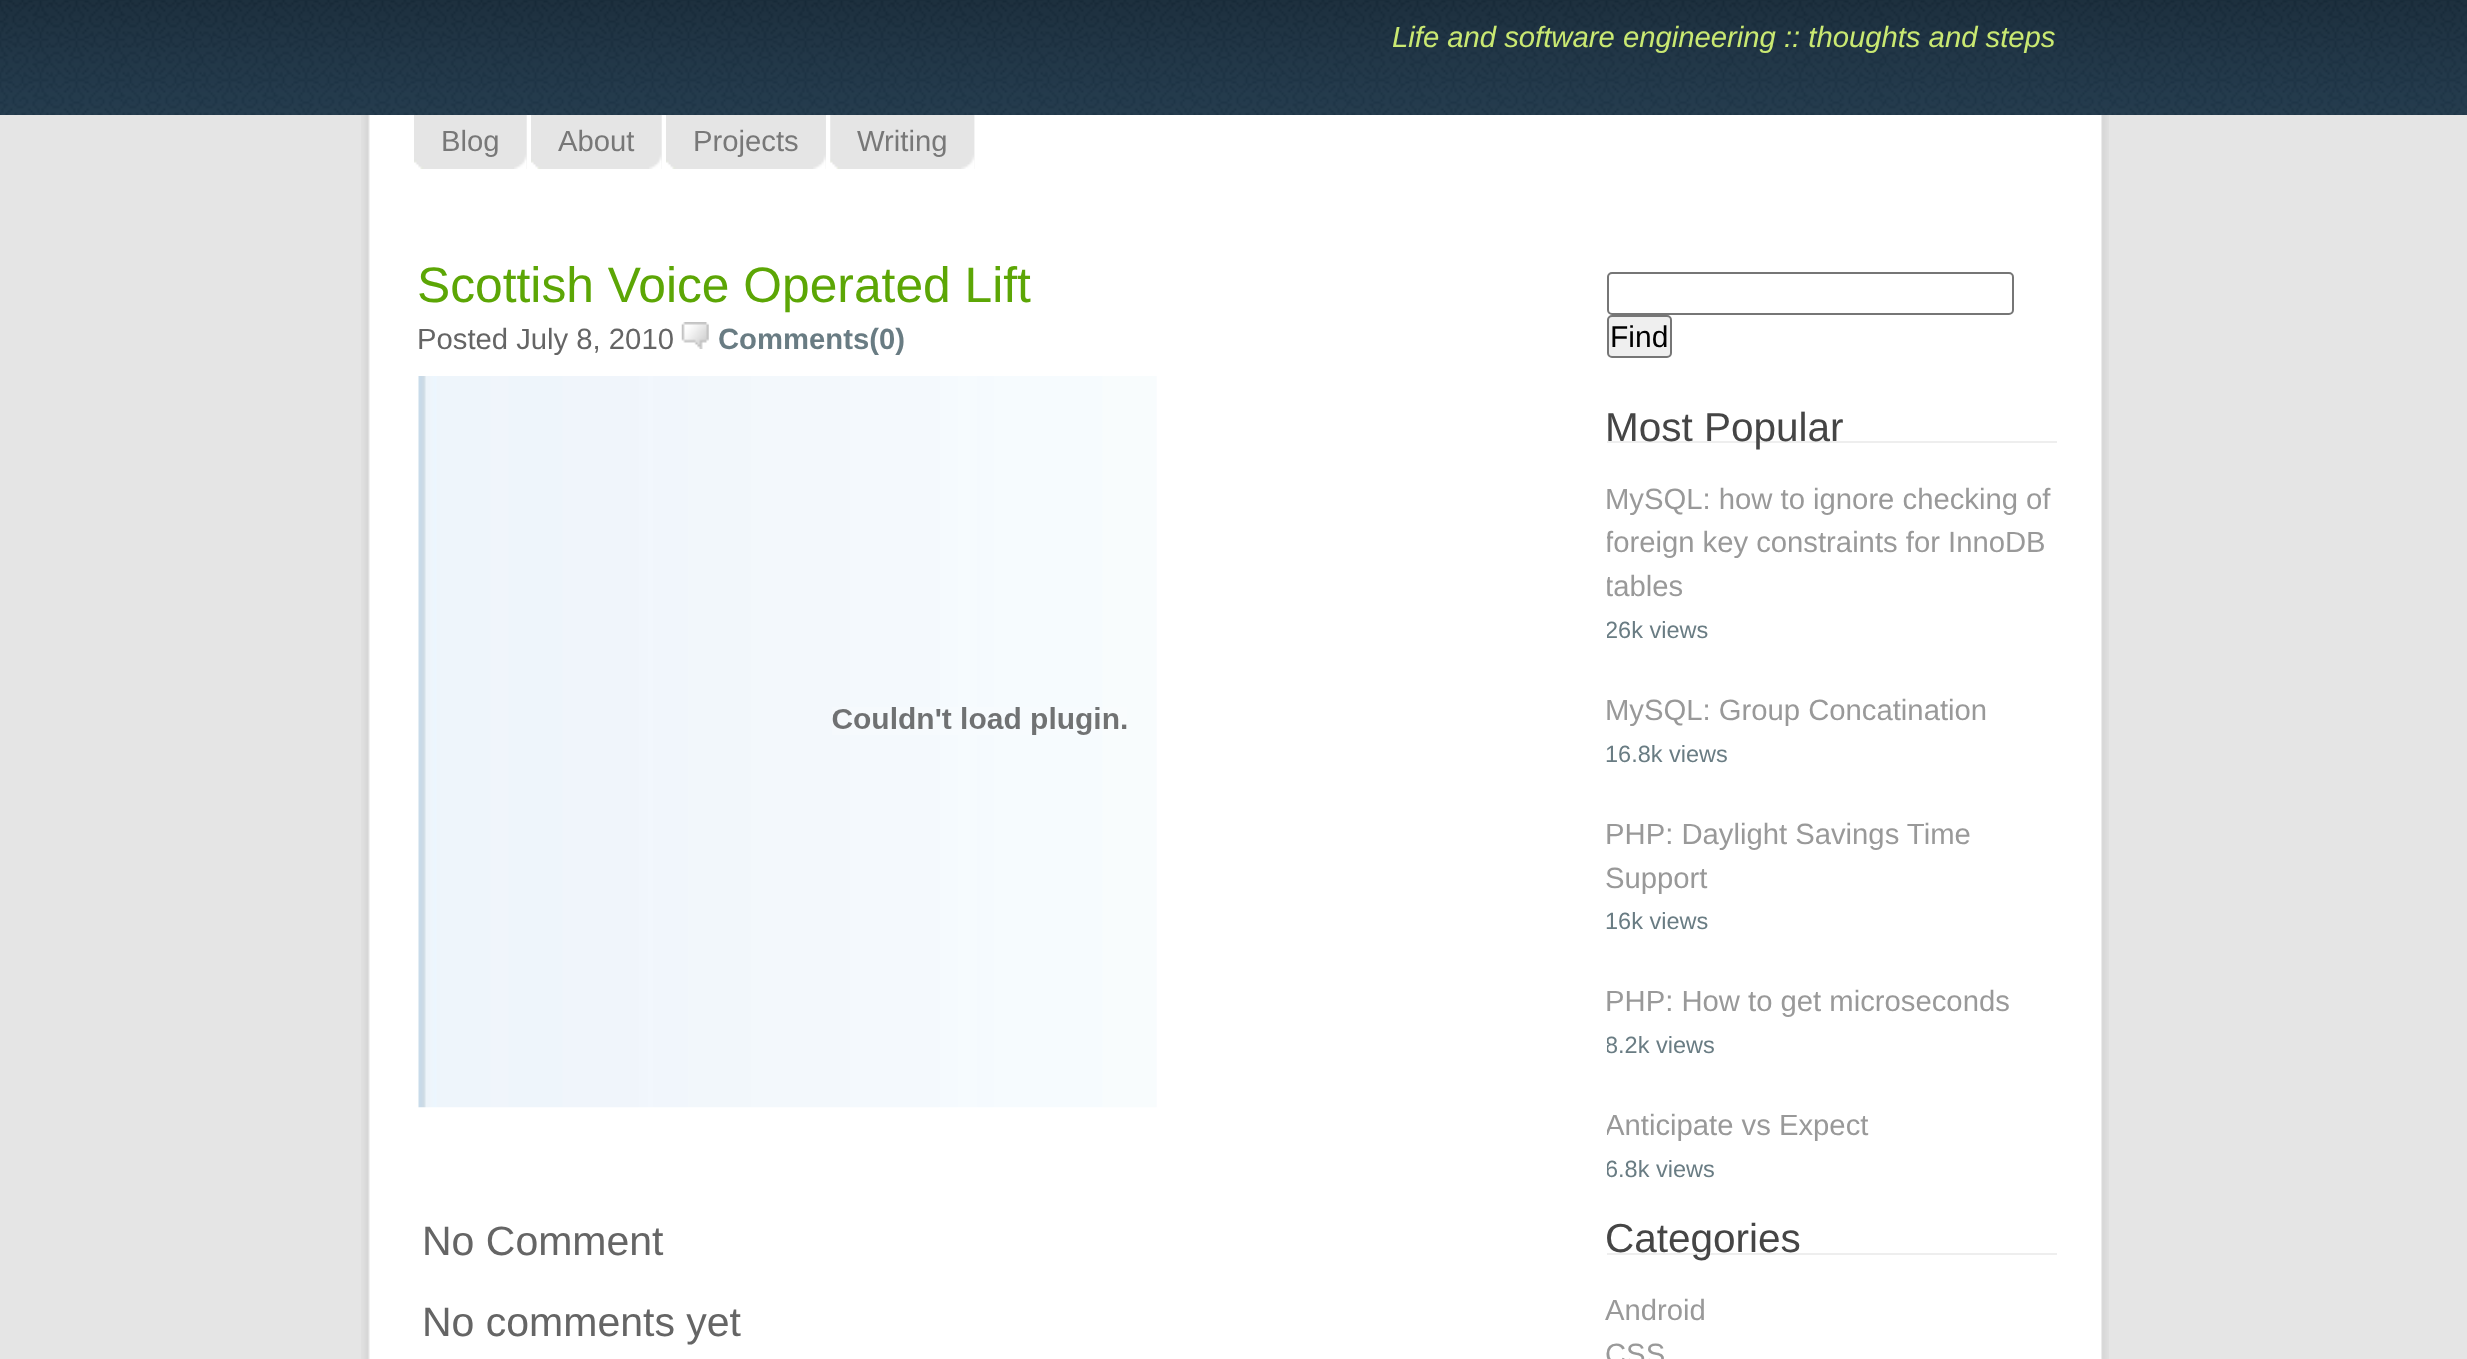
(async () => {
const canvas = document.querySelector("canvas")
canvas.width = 2467
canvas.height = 1359
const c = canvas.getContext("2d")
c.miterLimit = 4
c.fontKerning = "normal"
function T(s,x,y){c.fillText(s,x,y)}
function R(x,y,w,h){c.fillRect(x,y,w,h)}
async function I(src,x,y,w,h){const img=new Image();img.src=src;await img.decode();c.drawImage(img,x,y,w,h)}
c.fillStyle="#e5e5e5"
R(0,0,2467,1359)
await I("1.png",361,115,1748,1244)
await I("2.png",0,0,2467,115)
c.font="italic 29.25px Liberation Sans"
c.fillStyle="#cae972"
T("Life and software engineering :: thoughts and steps",1392,47)
await I("3.png",414,115,113,54)
await I("4.png",514,115,13,54)
c.font="29.25px Liberation Sans"
c.fillStyle="#787878"
T("Blog",441,151)
await I("5.png",531,115,131,54)
await I("4.png",649,115,13,54)
T("About",558,151)
await I("6.png",666,115,160,54)
await I("7.png",813,115,13,54)
T("Projects",693,151)
await I("8.png",830,115,145,54)
await I("9.png",961,115,14,54)
T("Writing",857,151)
c.font="49.75px Liberation Sans"
c.fillStyle="#5ca605"
T("Scottish Voice Operated Lift",417,302)
c.font="29.25px Liberation Sans"
c.fillStyle="#656565"
T("Posted July 8, 2010",417,349)
await I("10.png",681,322,28,27)
c.font="bold 29.25px Liberation Sans"
c.fillStyle="#697c83"
T("Comments(0)",718,349)
await I("11.png",418,376,739,732)
await I("12.png",832,707,295,28)
c.font="41px Liberation Sans"
c.fillStyle="#656565"
T("No Comment",422,1255)
T("No comments yet",422,1336)
c.beginPath()
c.roundRect(1608,273,405,41,4)
c.strokeStyle="#767676"
c.lineWidth=2
c.stroke()
c.fillStyle="#efefef"
c.beginPath()
c.roundRect(1608,316,63,41,4)
c.fill()
c.stroke()
c.font="30px Liberation Sans"
c.fillStyle="#000"
T("Find",1610,347)
c.fillStyle="#eee"
R(1607,441,450,2)
c.font="40.5px Liberation Sans"
c.fillStyle="#454545"
T("Most Popular",1605,441)
c.font="29.25px Liberation Sans"
c.fillStyle="#999"
T("MySQL: how to ignore checking of",1605,509)
c.save()
c.beginPath()
c.rect(1607,477,450,176)
c.clip()
T("foreign key constraints for InnoDB",1605,552)
T("tables",1605,596)
c.font="23.5px Liberation Sans"
c.fillStyle="#697c83"
T("26k views",1605,638)
c.restore()
T("MySQL: Group Concatination",1605,720)
c.font="23.5px Liberation Sans"
c.fillStyle="#697c83"
T("16.8k views",1605,762)
c.font="29.25px Liberation Sans"
c.fillStyle="#999"
T("PHP: Daylight Savings Time",1605,844)
T("Support",1605,888)
c.font="23.5px Liberation Sans"
c.fillStyle="#697c83"
T("16k views",1605,929)
c.font="29.25px Liberation Sans"
c.fillStyle="#999"
T("PHP: How to get microseconds",1605,1011)
c.save()
c.beginPath()
c.rect(1607,981,450,88)
c.clip()
c.font="23.5px Liberation Sans"
c.fillStyle="#697c83"
T("8.2k views",1605,1053)
c.restore()
c.save()
c.beginPath()
c.rect(1607,1105,450,88)
c.clip()
T("Anticipate vs Expect",1605,1135)
c.font="23.5px Liberation Sans"
c.fillStyle="#697c83"
T("6.8k views",1605,1177)
c.restore()
c.fillStyle="#eee"
R(1607,1253,450,2)
c.font="40.5px Liberation Sans"
c.fillStyle="#454545"
T("Categories",1605,1252)
c.font="29.25px Liberation Sans"
c.fillStyle="#999"
T("Android",1605,1320)
T("CSS",1605,1364)
})()
